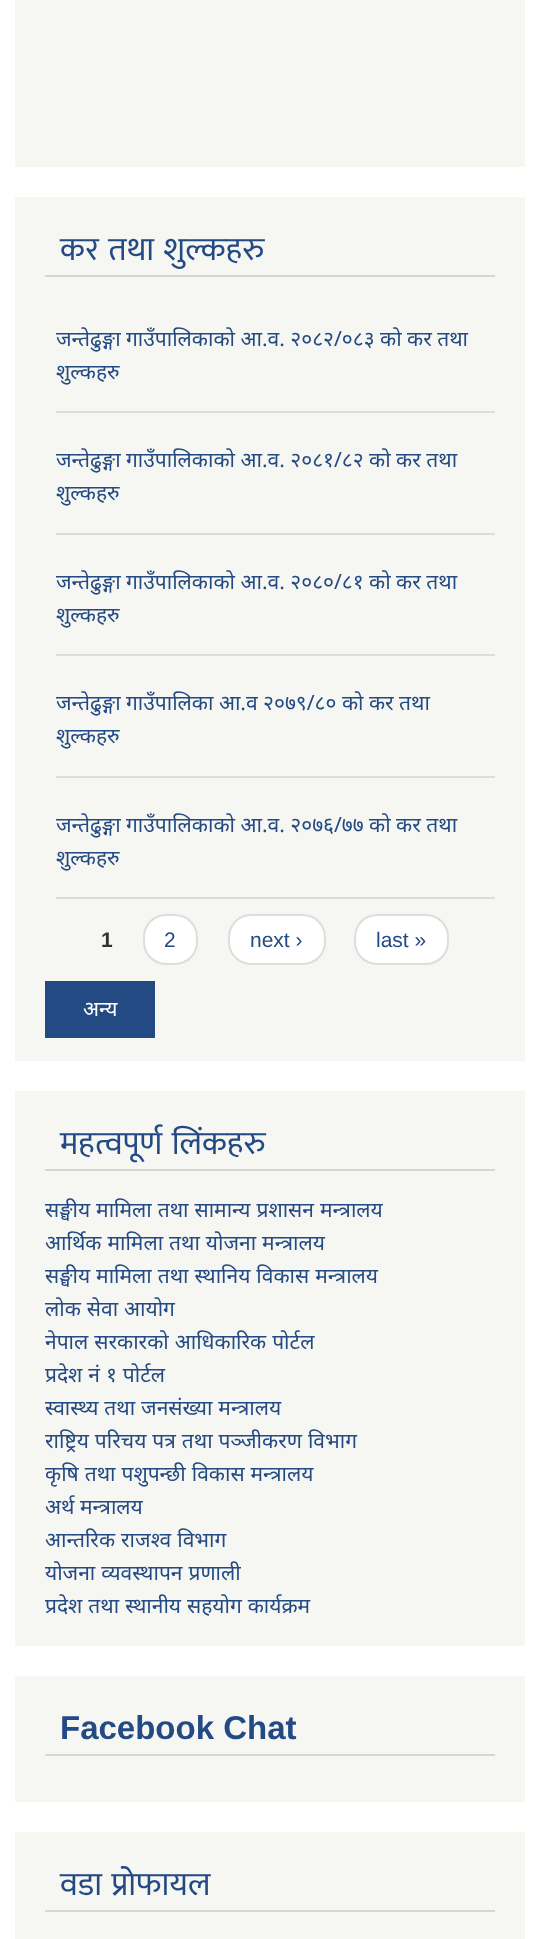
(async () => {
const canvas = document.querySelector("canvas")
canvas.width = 540
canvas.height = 1939
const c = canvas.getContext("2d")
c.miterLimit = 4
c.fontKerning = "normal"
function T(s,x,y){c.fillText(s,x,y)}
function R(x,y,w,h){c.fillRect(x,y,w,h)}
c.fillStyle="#fff"
R(0,0,540,1939)
c.fillStyle="#f6f6f2"
R(15,0,510,167)
R(15,197,510,864)
c.fillStyle="#d6d6d6"
R(45,275,450,2)
c.wordSpacing="2px"
c.font="33px Mukta"
c.fillStyle="#234a83"
T("कर तथा शुल्कहरु",60,260)
c.fillStyle="#daddd8"
R(56,411,439,2)
c.wordSpacing="0px"
c.font="21px Noto Sans"
c.fillStyle="#234a83"
T("जन्तेढुङ्गा गाउँपालिकाको आ.व. २०८२/०८३ को कर तथा",56,346)
T("शुल्कहरु",56,379)
c.fillStyle="#daddd8"
R(56,533,439,2)
c.fillStyle="#234a83"
T("जन्तेढुङ्गा गाउँपालिकाको आ.व. २०८१/८२ को कर तथा",56,467)
T("शुल्कहरु",56,500)
c.fillStyle="#daddd8"
R(56,654,439,2)
c.fillStyle="#234a83"
T("जन्तेढुङ्गा गाउँपालिकाको आ.व. २०८०/८१ को कर तथा",56,589)
T("शुल्कहरु",56,622)
c.fillStyle="#daddd8"
R(56,776,439,2)
c.fillStyle="#234a83"
T("जन्तेढुङ्गा गाउँपालिका आ.व २०७९/८० को कर तथा",56,710)
T("शुल्कहरु",56,743)
c.fillStyle="#daddd8"
R(56,897,439,2)
c.fillStyle="#234a83"
T("जन्तेढुङ्गा गाउँपालिकाको आ.व. २०७६/७७ को कर तथा",56,832)
T("शुल्कहरु",56,865)
c.font="bold 21px Liberation Sans"
c.fillStyle="#333"
T("1",101,947)
c.fillStyle="#fff"
c.beginPath()
c.roundRect(144,915,53,49,22)
c.fill()
c.strokeStyle="#ddd"
c.lineWidth=2
c.stroke()
c.font="21px Liberation Sans"
c.fillStyle="#234a83"
T("2",164,947)
c.fillStyle="#fff"
c.beginPath()
c.roundRect(229,915,96,49,22)
c.fill()
c.stroke()
c.fillStyle="#234a83"
T("next ›",250,947)
c.fillStyle="#fff"
c.beginPath()
c.roundRect(355,915,93,49,22)
c.fill()
c.stroke()
c.fillStyle="#234a83"
T("last »",376,947)
R(45,981,110,57)
c.font="21px Noto Sans"
c.fillStyle="#fff"
T("अन्य",83,1016)
c.fillStyle="#f6f6f2"
R(15,1091,510,555)
c.fillStyle="#d6d6d6"
R(45,1169,450,2)
c.wordSpacing="2px"
c.font="33px Mukta"
c.fillStyle="#234a83"
T("महत्वपूर्ण लिंकहरु",60,1154)
c.wordSpacing="0.5px"
c.font="21px Noto Sans"
T("सङ्घीय मामिला तथा सामान्य प्रशासन मन्त्रालय",45,1217)
T("आर्थिक मामिला तथा योजना मन्त्रालय",45,1250)
T("सङ्घीय मामिला तथा स्थानिय विकास मन्त्रालय",45,1283)
T("लोक सेवा आयोग",45,1316)
T("नेपाल सरकारको आधिकारिक पोर्टल",45,1349)
T("प्रदेश नं १ पोर्टल",45,1382)
T("स्वास्थ्य तथा जनसंख्या मन्त्रालय",45,1415)
T("राष्ट्रिय परिचय पत्र तथा पञ्जीकरण विभाग",45,1448)
T("कृषि तथा पशुपन्छी विकास मन्त्रालय",45,1481)
c.wordSpacing="0px"
T("अर्थ मन्त्रालय",45,1514)
c.wordSpacing="0.5px"
T("आन्तरिक राजश्व विभाग",45,1547)
T("योजना व्यवस्थापन प्रणाली",45,1580)
T("प्रदेश तथा स्थानीय सहयोग कार्यक्रम",45,1613)
c.fillStyle="#f6f6f2"
R(15,1676,510,126)
c.fillStyle="#d6d6d6"
R(45,1754,450,2)
c.wordSpacing="0px"
c.font="bold 33px Liberation Sans"
c.fillStyle="#234a83"
T("Facebook Chat",60,1739)
c.fillStyle="#f6f6f2"
R(15,1832,510,107)
c.fillStyle="#d6d6d6"
R(45,1910,450,2)
c.wordSpacing="2px"
c.font="33px Mukta"
c.fillStyle="#234a83"
T("वडा प्रोफायल",60,1895)
})()
